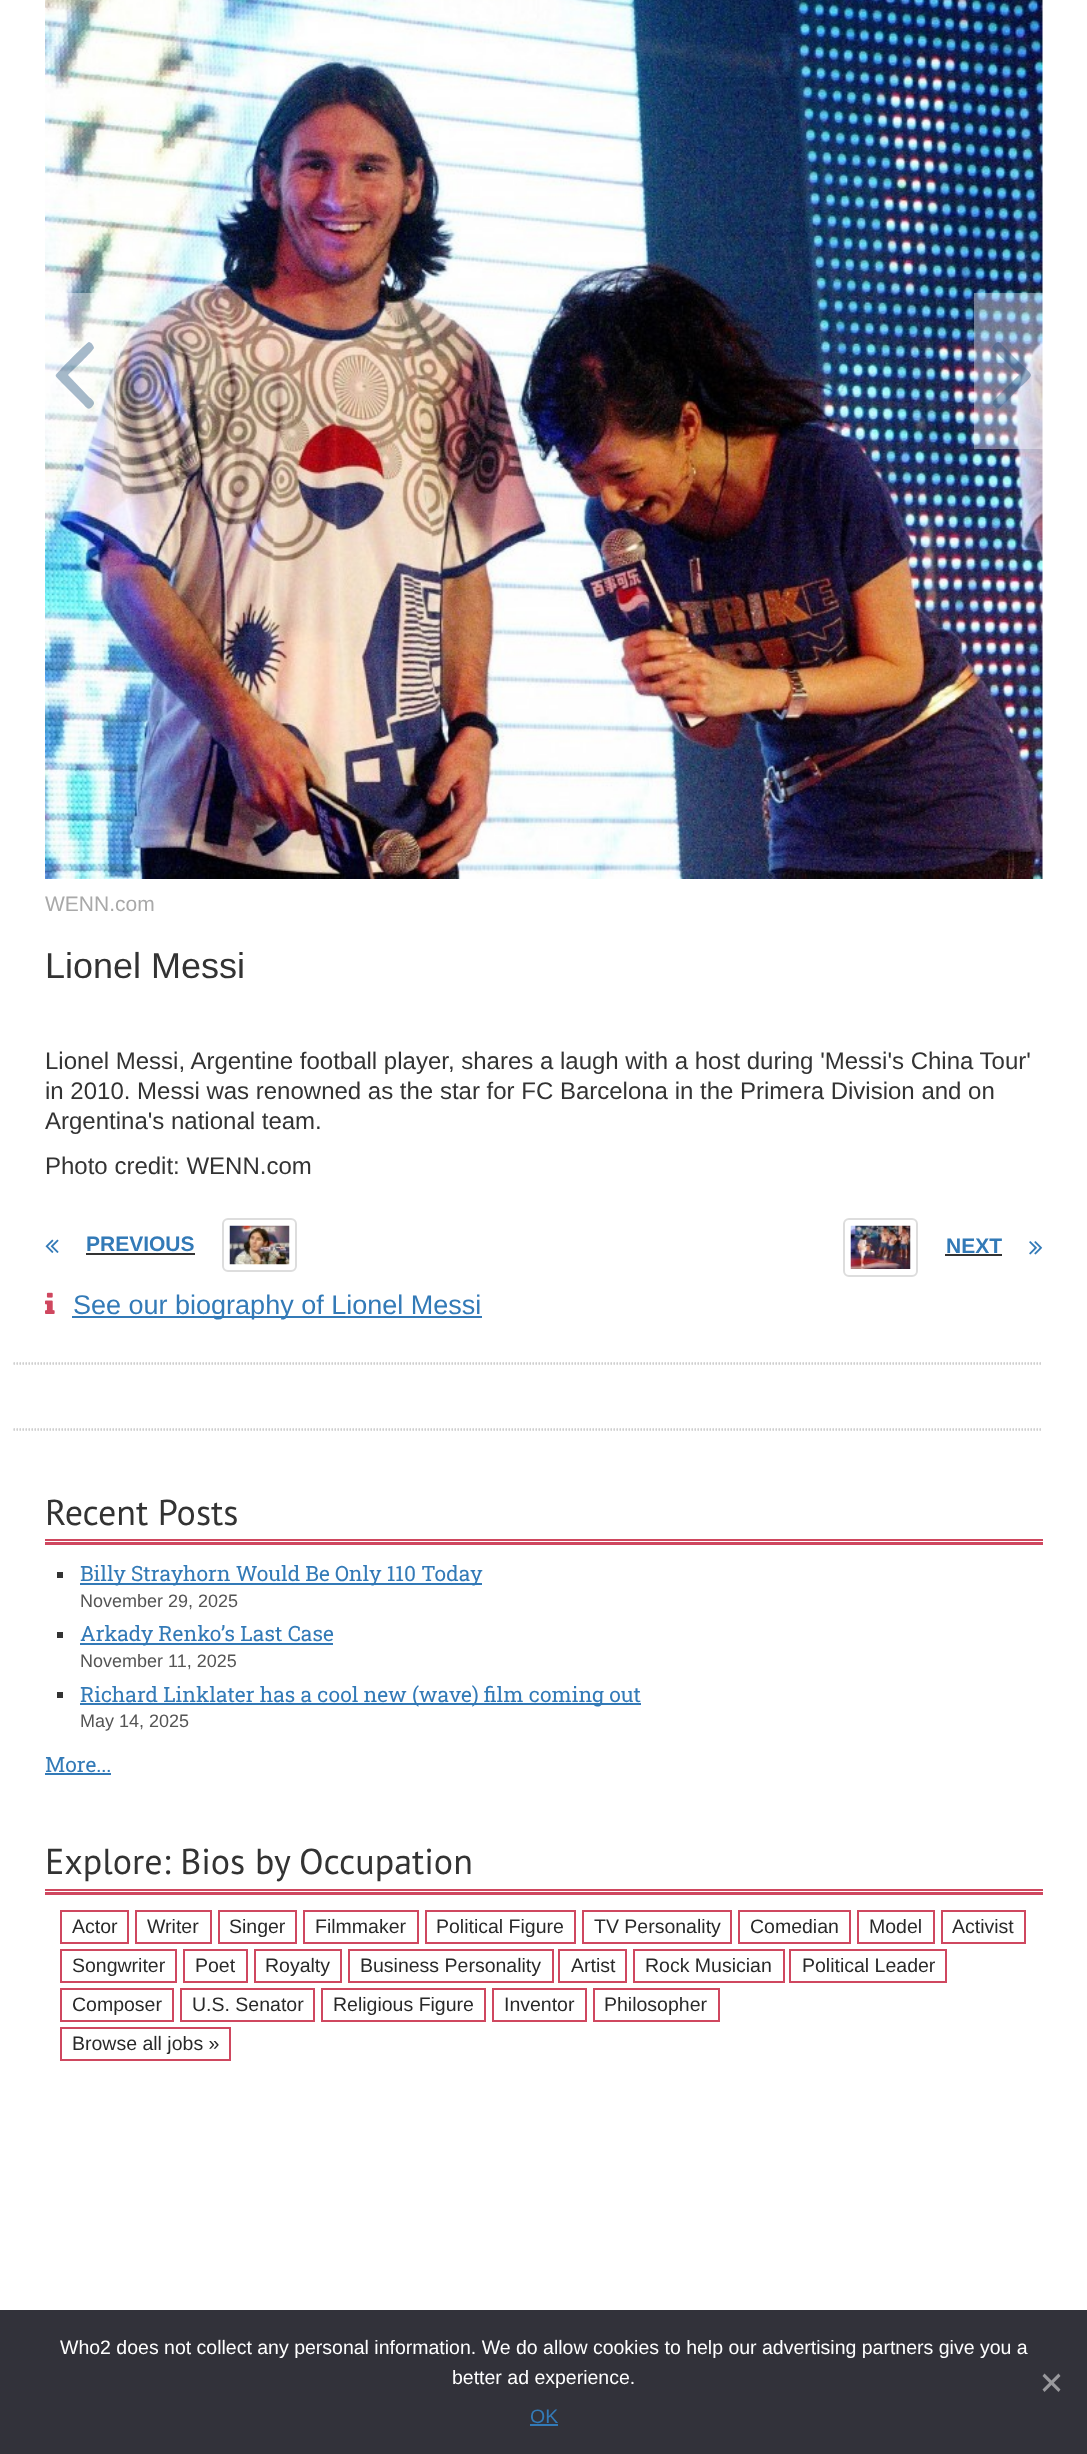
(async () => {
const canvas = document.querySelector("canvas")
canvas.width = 1087
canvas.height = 2454
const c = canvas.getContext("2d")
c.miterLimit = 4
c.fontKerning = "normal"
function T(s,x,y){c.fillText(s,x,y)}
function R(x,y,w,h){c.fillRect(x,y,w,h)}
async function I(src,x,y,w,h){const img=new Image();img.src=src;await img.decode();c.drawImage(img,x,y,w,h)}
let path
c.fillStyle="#fff"
R(0,0,1087,2454)
await I("1.png",45,0,998,879)
c.fillStyle="#ffffff66"
R(45,293,69,156)
c.fillStyle="#23527c66"
path = new Path2D("M94 348c0-2-3-6-5-6c-2 0-24 23-28 27c-7 8-7 5 0 13l21 21c4 4 6 8 10 4l2-3c1-3-4-6-5-7l-21-22c3-3 26-25 26-27z")
c.fill(path)
c.fillStyle="#ffffff66"
R(974,293,69,156)
c.fillStyle="#23527c66"
path = new Path2D("M1031 375c0-2-9-10-11-12l-15-15c-6-6-6-9-12-2c-2 3 4 7 4 7l22 22l-22 22c0 1-6 5-4 8c6 6 5 4 12-2l15-16c2-1 11-9 11-12z")
c.fill(path)
c.font="21px Liberation Sans"
c.fillStyle="#a9a9a9"
T("WENN.com",45,911)
c.font="36px Liberation Sans"
c.fillStyle="#333"
T("Lionel Messi",45,978)
c.font="24px Liberation Sans"
T("Lionel Messi, Argentine football player, shares a laugh with a host during 'Messi's China Tour'",45,1069)
T("in 2010. Messi was renowned as the star for FC Barcelona in the Primera Division and on",45,1099)
T("Argentina's national team.",45,1129)
T("Photo credit: WENN.com",45,1174)
await I("2.png",45,1239,14,14)
c.font="bold 21px Liberation Sans"
c.fillStyle="#337ab7"
T("PREVIOUS",86,1251)
c.fillStyle="#333"
R(86,1253,109,2)
c.beginPath()
c.roundRect(223,1219,73,52,5)
c.strokeStyle="#ddd"
c.lineWidth=2
c.stroke()
await I("3.png",229,1225,61,40)
c.beginPath()
c.roundRect(844,1219,73,57,5)
c.stroke()
await I("4.png",850,1225,61,44)
c.fillStyle="#337ab7"
T("NEXT",946,1253)
c.fillStyle="#333"
R(945,1254,57,2)
await I("5.png",1029,1241,14,14)
await I("6.png",45,1292,10,22)
c.fillStyle="#337ab7"
R(72,1316,410,2)
c.font="27px Liberation Sans"
T("See our biography of Lionel Messi",73,1314)
path = new Path2D("M13.5 1363h1029")
c.strokeStyle="#ccc"
c.lineWidth=1.5
c.setLineDash([1.5,1.5])
c.stroke(path)
path = new Path2D("M13.5 1364h1029")
c.stroke(path)
path = new Path2D("M13.5 1429h1029")
c.stroke(path)
path = new Path2D("M13.5 1430h1029")
c.stroke(path)
c.font="36px PT Sans"
c.fillStyle="#333"
T("Recent Posts",45,1525)
c.fillStyle="#cf475f"
R(45,1539,998,2)
R(45,1542,998,3)
c.fillStyle="#333"
R(57,1572,6,6)
c.fillStyle="#337ab7"
R(80,1583,402,2)
c.font="21px Roboto Slab"
T("Billy Strayhorn Would Be Only 110 Today",80,1581)
c.font="18px Liberation Sans"
c.fillStyle="#555"
T("November 29, 2025",80,1607)
c.fillStyle="#333"
R(57,1632,6,6)
c.fillStyle="#337ab7"
R(80,1643,253,2)
c.font="21px Roboto Slab"
T("Arkady Renko’s Last Case",80,1641)
c.font="18px Liberation Sans"
c.fillStyle="#555"
T("November 11, 2025",80,1667)
c.fillStyle="#333"
R(57,1692,6,6)
c.fillStyle="#337ab7"
R(80,1703,561,2)
c.font="21px Roboto Slab"
T("Richard Linklater has a cool new (wave) film coming out",80,1702)
c.font="18px Liberation Sans"
c.fillStyle="#555"
T("May 14, 2025",80,1727)
c.font="21px Roboto Slab"
c.fillStyle="#337ab7"
T("More...",45,1772)
R(45,1773,66,2)
c.font="36px PT Sans"
c.fillStyle="#333"
T("Explore: Bios by Occupation",45,1874)
c.fillStyle="#cf475f"
R(45,1889,998,2)
R(45,1892,998,3)
c.strokeStyle="#cf475f"
c.lineWidth=2
c.setLineDash([])
c.strokeRect(61,1911,67,32)
c.font="19.5px Liberation Sans"
c.fillStyle="#292929"
T("Actor",72,1933)
c.strokeRect(136,1911,75,32)
T("Writer",147,1933)
c.strokeRect(219,1911,77,32)
T("Singer",229,1933)
c.strokeRect(304,1911,114,32)
T("Filmmaker",315,1933)
c.strokeRect(426,1911,149,32)
T("Political Figure",436,1933)
c.strokeRect(583,1911,148,32)
T("TV Personality",594,1933)
c.strokeRect(739,1911,111,32)
T("Comedian",750,1933)
c.strokeRect(858,1911,76,32)
T("Model",869,1933)
c.strokeRect(942,1911,83,32)
T("Activist",952,1933)
c.strokeRect(61,1950,115,32)
T("Songwriter",72,1972)
c.strokeRect(184,1950,63,32)
T("Poet",195,1972)
c.strokeRect(255,1950,86,32)
T("Royalty",265,1972)
c.strokeRect(349,1950,204,32)
T("Business Personality",360,1972)
c.strokeRect(559,1950,67,32)
T("Artist",571,1972)
c.strokeRect(634,1950,150,32)
T("Rock Musician",645,1972)
c.strokeRect(790,1950,156,32)
T("Political Leader",802,1972)
c.strokeRect(61,1989,112,32)
T("Composer",72,2011)
c.strokeRect(181,1989,133,32)
T("U.S. Senator",192,2011)
c.strokeRect(322,1989,163,32)
T("Religious Figure",333,2011)
c.strokeRect(493,1989,93,32)
T("Inventor",504,2011)
c.strokeRect(594,1989,125,32)
T("Philosopher",604,2011)
c.strokeRect(61,2028,169,32)
T("Browse all jobs »",72,2050)
c.fillStyle="#32323a"
R(0,2310,1087,144)
c.fillStyle="#fff"
T("Who2 does not collect any personal information. We do allow cookies to help our advertising partners give you a",60,2354)
T("better ad experience.",452,2384)
c.fillStyle="#99999d"
path = new Path2D("M1058.5 2373.5l2 2.5l-16 16l-2-2.5z")
c.fill(path)
path = new Path2D("M1042.5 2376l2-2.5l16 16l-2 2.5z")
c.fill(path)
c.fillStyle="#337ab7"
T("OK",530,2423)
R(530,2424,28,2)
})()
